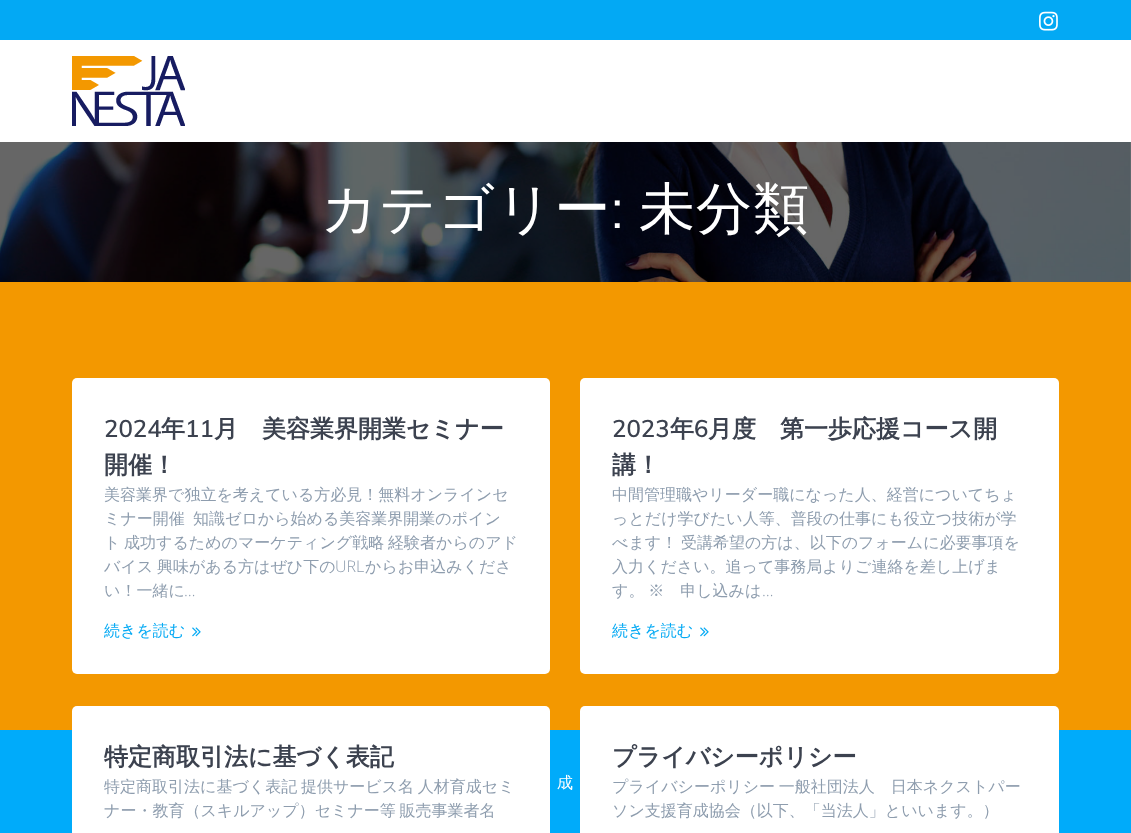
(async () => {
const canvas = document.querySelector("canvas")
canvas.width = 1131
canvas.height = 833
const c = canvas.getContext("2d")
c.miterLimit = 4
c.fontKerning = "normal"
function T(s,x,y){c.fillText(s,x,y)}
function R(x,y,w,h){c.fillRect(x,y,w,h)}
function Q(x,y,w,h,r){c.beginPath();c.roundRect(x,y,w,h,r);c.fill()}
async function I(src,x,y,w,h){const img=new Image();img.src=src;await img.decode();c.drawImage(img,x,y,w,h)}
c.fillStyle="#fff"
R(0,0,1131,833)
c.fillStyle="#03a9f4"
R(0,0,1131,40)
await I("1.png",1039,11,19,20)
await I("2.png",72,56,113,70)
await I("3.png",0,142,1131,140)
c.letterSpacing="1px"
c.font="500 56px WenQuanYi Zen Hei"
c.fillStyle="#fff"
T("カテゴリー",321,228)
c.font="300 56px Muli"
T(":",611,228)
c.font="500 56px WenQuanYi Zen Hei"
T("未分類",639,228)
c.fillStyle="#f39800"
R(0,282,1131,448)
c.fillStyle="#fff"
Q(72,378,478,296,5)
c.letterSpacing="0px"
c.font="600 24px Muli"
c.fillStyle="#3c424f"
T("2024",104,437)
c.font="bold 24px WenQuanYi Zen Hei"
T("年",161,437)
c.font="600 24px Muli"
T("11",185,437)
c.font="bold 24px WenQuanYi Zen Hei"
T("月　美容業界開業セミナー",214,437)
T("開催！",104,473)
c.font="500 16px WenQuanYi Zen Hei"
c.fillStyle="#8e9dae"
T("美容業界で独立を考えている方必見！無料オンラインセ",104,500)
T("ミナー開催",104,524)
T("知識ゼロから始める美容業界開業のポイン",193,524)
T("ト",104,548)
T("成功するためのマーケティング戦略",124,548)
T("経験者からのアド",388,548)
c.wordSpacing="-1px"
T("バイス 興味がある方はぜひ下の",104,572)
c.wordSpacing="0px"
c.font="300 16px Open Sans"
T("URL",335,572)
c.font="500 16px WenQuanYi Zen Hei"
T("からお申込みくださ",365,572)
T("い！一緒に",104,596)
c.font="300 16px Open Sans"
T("…",184,596)
c.font="500 16px WenQuanYi Zen Hei"
c.fillStyle="#03a9f4"
T("続きを読む",104,636)
await I("4.png",192,627,9,10)
c.fillStyle="#fff"
Q(580,378,479,296,5)
c.font="600 24px Muli"
c.fillStyle="#3c424f"
T("2023",612,437)
c.font="bold 24px WenQuanYi Zen Hei"
T("年",670,437)
c.font="600 24px Muli"
T("6",694,437)
c.font="bold 24px WenQuanYi Zen Hei"
T("月度　第一歩応援コース開",708,437)
T("講！",612,473)
c.font="500 16px WenQuanYi Zen Hei"
c.fillStyle="#8e9dae"
T("中間管理職やリーダー職になった人、経営についてちょ",612,500)
T("っとだけ学びたい人等、普段の仕事にも役立つ技術が学",612,524)
c.wordSpacing="-1px"
T("べます！ 受講希望の方は、以下のフォームに必要事項を",612,548)
c.wordSpacing="0px"
T("入力ください。追って事務局よりご連絡を差し上げま",612,572)
c.wordSpacing="-1px"
T("す。 ※　申し込みは",612,596)
c.wordSpacing="0px"
c.font="300 16px Open Sans"
T("…",762,596)
c.font="500 16px WenQuanYi Zen Hei"
c.fillStyle="#03a9f4"
T("続きを読む",612,636)
await I("4.png",700,627,9,10)
c.fillStyle="#00abfa"
R(0,730,1131,103)
c.fillStyle="#fff"
Q(72,706,478,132,5)
c.font="bold 24px WenQuanYi Zen Hei"
c.fillStyle="#3c424f"
T("特定商取引法に基づく表記",104,765)
c.wordSpacing="-1px"
c.font="500 16px WenQuanYi Zen Hei"
c.fillStyle="#8e9dae"
T("特定商取引法に基づく表記 提供サービス名 人材育成セミ",104,792)
T("ナー・教育（スキルアップ）セミナー等 販売事業者名",104,816)
c.fillStyle="#fff"
Q(580,706,479,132,5)
c.wordSpacing="0px"
c.font="bold 24px WenQuanYi Zen Hei"
c.fillStyle="#3c424f"
T("プライバシーポリシー",612,765)
c.wordSpacing="-1px"
c.font="500 16px WenQuanYi Zen Hei"
c.fillStyle="#8e9dae"
T("プライバシーポリシー 一般社団法人　日本ネクストパー",612,792)
c.wordSpacing="0px"
T("ソン支援育成協会（以下、「当法人」といいます。）",612,816)
c.fillStyle="#fff"
T("成",557,788)
})()
